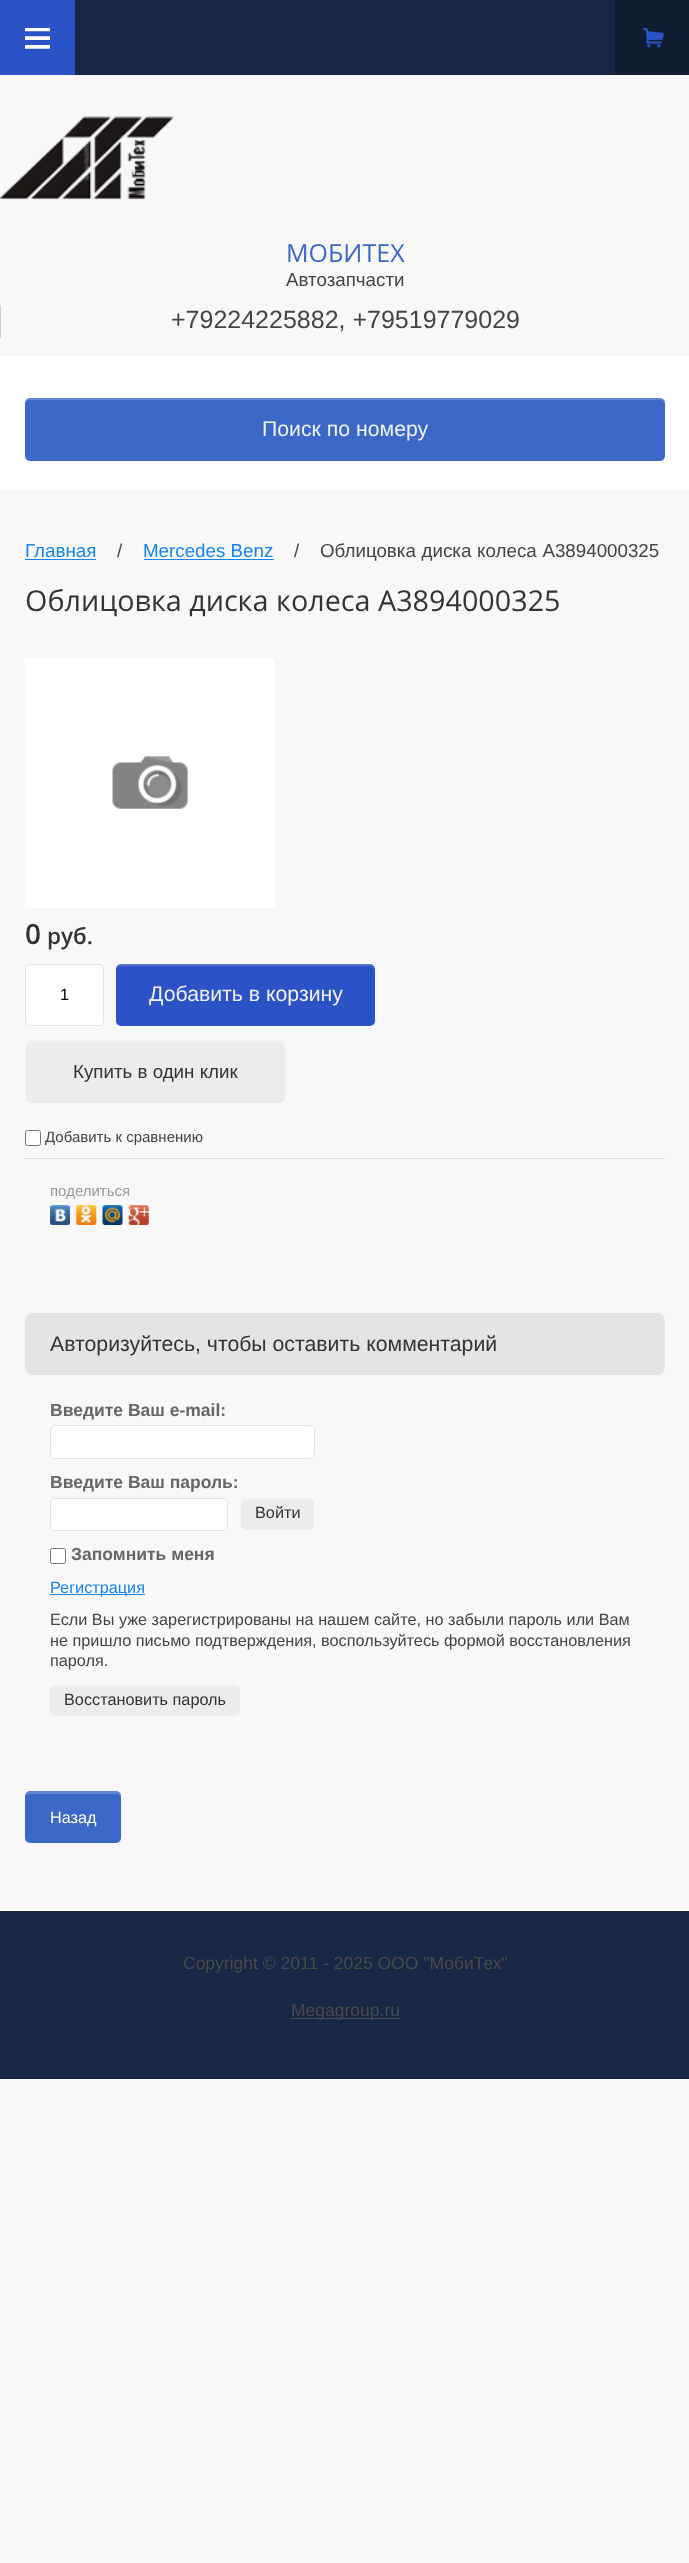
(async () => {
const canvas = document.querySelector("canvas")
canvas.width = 689
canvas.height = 2563
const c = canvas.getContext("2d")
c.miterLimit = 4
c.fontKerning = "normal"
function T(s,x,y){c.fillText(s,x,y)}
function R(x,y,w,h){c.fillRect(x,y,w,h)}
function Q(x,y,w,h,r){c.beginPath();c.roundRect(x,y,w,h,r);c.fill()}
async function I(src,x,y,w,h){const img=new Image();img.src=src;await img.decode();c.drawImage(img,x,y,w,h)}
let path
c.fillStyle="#f8f8f8"
R(0,0,689,2563)
c.fillStyle="#182746"
R(75,0,540,75)
c.fillStyle="#2b52c6"
R(0,0,75,75)
await I("1.png",25,28,25,21)
c.fillStyle="#111b31"
R(615,0,74,75)
await I("2.png",643,28,21,20)
await I("3.png",0,116,174,84)
c.font="25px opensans"
c.fillStyle="#3b67c6"
T("МОБИТЕХ",286,262)
c.font="18.75px Liberation Sans"
c.fillStyle="#444"
T("Автозапчасти",286,286)
c.fillStyle="#ccc"
R(0,305,1,33)
c.font="25px Liberation Sans"
c.fillStyle="#444"
T("+79224225882, +79519779029",171,328)
c.fillStyle="#fff"
R(0,356,689,134)
c.fillStyle="#3b67c6"
Q(25,398,640,63,5)
c.fillStyle="#ffffff33"
path = new Path2D("M30 400h630c3 0 5 2 5 5v-2c0-3-2-5-5-5h-630c-3 0-5 2-5 5v2c0-3 2-5 5-5z")
c.fill(path)
c.font="21.25px Liberation Sans"
c.fillStyle="#f2f2f2"
T("Поиск по номеру",262,436)
c.font="18.75px Liberation Sans"
c.fillStyle="#1684eb"
T("Главная",25,557)
R(25,559,71,1)
c.fillStyle="#444"
T("/",117,557)
c.fillStyle="#1684eb"
T("Mercedes Benz",143,557)
R(144,559,130,1)
c.fillStyle="#444"
T("/",294,557)
c.wordSpacing="0.5px"
T("Облицовка диска колеса A3894000325",320,557)
c.wordSpacing="0px"
c.font="28.75px opensans"
c.fillStyle="#333"
T("Облицовка диска колеса A3894000325",25,611)
c.fillStyle="#fff"
R(25,658,250,250)
await I("4.png",112,756,77,53)
c.font="600 28px Open Sans"
c.fillStyle="#333"
T("0",25,944)
c.font="600 22.5px Open Sans"
T("руб.",47,944)
c.fillStyle="#fff"
c.beginPath()
c.roundRect(25.5,964.5,78,61,4.5)
c.fill()
c.strokeStyle="#e3e3e3"
c.stroke()
c.font="16.25px Liberation Sans"
c.fillStyle="#000"
T("1",60,1000)
c.fillStyle="#2b52c6"
Q(116,964,259,62,5)
c.fillStyle="#ffffff33"
path = new Path2D("M121 966h249c3 0 5 2 5 5v-2c0-3-2-5-5-5h-249c-3 0-5 2-5 5v2c0-3 2-5 5-5z")
c.fill(path)
c.font="21.25px Liberation Sans"
c.fillStyle="#f2f2f2"
T("Добавить в корзину",149,1001)
c.fillStyle="#ececec"
Q(26,1040,259,63,5)
c.fillStyle="#ffffff66"
path = new Path2D("M31 1042h249c3 0 5 3 5 6v-3c0-3-2-5-5-5h-249c-3 0-5 2-5 5v3c0-3 2-6 5-6z")
c.fill(path)
c.font="18.75px Liberation Sans"
c.fillStyle="#333"
T("Купить в один клик",73,1078)
c.fillStyle="#dedede"
R(25,1158,640,1)
c.fillStyle="#fff"
c.beginPath()
c.roundRect(25.5,1130.5,15,15,2)
c.fill()
c.strokeStyle="#767676"
c.stroke()
c.font="15px Liberation Sans"
c.fillStyle="#444"
T("Добавить к сравнению",45,1142)
c.fillStyle="#999"
T("поделиться",50,1196)
await I("5.png",50,1205,20,20)
await I("6.png",76,1205,21,20)
await I("7.png",102,1205,21,20)
await I("8.png",128,1205,21,20)
c.fillStyle="#e4e4e4"
Q(25,1313,640,62,8)
c.font="21.25px Liberation Sans"
c.fillStyle="#333"
T("Авторизуйтесь, чтобы оставить комментарий",50,1351)
c.font="bold 17.5px Liberation Sans"
c.fillStyle="#666"
T("Введите Ваш e-mail:",50,1416)
c.fillStyle="#fff"
c.beginPath()
c.roundRect(50.5,1425.5,264,33,4.5)
c.fill()
c.strokeStyle="#e3e3e3"
c.stroke()
c.fillStyle="#666"
T("Введите Ваш пароль:",50,1488)
c.fillStyle="#fff"
c.beginPath()
c.roundRect(50.5,1498.5,177,32,4.5)
c.fill()
c.stroke()
c.fillStyle="#ececec"
Q(241,1498,73,32,5)
c.fillStyle="#ffffff66"
path = new Path2D("M246 1500h63c3 0 5 2 5 5c0-10-7-7-16-7h-42c-8 0-15-3-15 7c0-3 2-5 5-5z")
c.fill(path)
c.font="16.25px Liberation Sans"
c.fillStyle="#333"
T("Войти",255,1518)
c.fillStyle="#fff"
c.beginPath()
c.roundRect(50.5,1548.5,15,15,2)
c.fill()
c.strokeStyle="#767676"
c.stroke()
c.font="bold 17.5px Liberation Sans"
c.fillStyle="#666"
T("Запомнить меня",71,1560)
c.fillStyle="#1684eb"
R(50,1594,95,1)
c.font="16.25px Liberation Sans"
T("Регистрация",50,1593)
c.fillStyle="#444"
T("Если Вы уже зарегистрированы на нашем сайте, но забыли пароль или Вам",50,1625)
T("не пришло письмо подтверждения, воспользуйтесь формой восстановления",50,1646)
T("пароля.",50,1666)
c.fillStyle="#ececec"
Q(50,1684,190,32,5)
c.fillStyle="#ffffff66"
path = new Path2D("M55 1686h180c3 0 5 2 5 5v-2c0-3-2-5-5-5h-180c-3 0-5 2-5 5v2c0-3 2-5 5-5z")
c.fill(path)
c.fillStyle="#333"
T("Восстановить пароль",64,1705)
c.fillStyle="#3b67c6"
Q(25,1791,96,52,5)
c.fillStyle="#ffffff33"
path = new Path2D("M30 1794h86c3 0 5 2 5 5c0-12-8-8-19-8h-58c-11 0-19-4-19 8c0-3 2-5 5-5z")
c.fill(path)
c.fillStyle="#fff"
T("Назад",50,1823)
c.fillStyle="#182746"
R(0,1911,689,168)
c.font="17.5px Liberation Sans"
c.fillStyle="#4a4a4a"
T("Copyright © 2011 - 2025 ООО \"МобиТех\"",183,1969)
R(290,2018,110,1)
T("Megagroup.ru",291,2016)
})()
